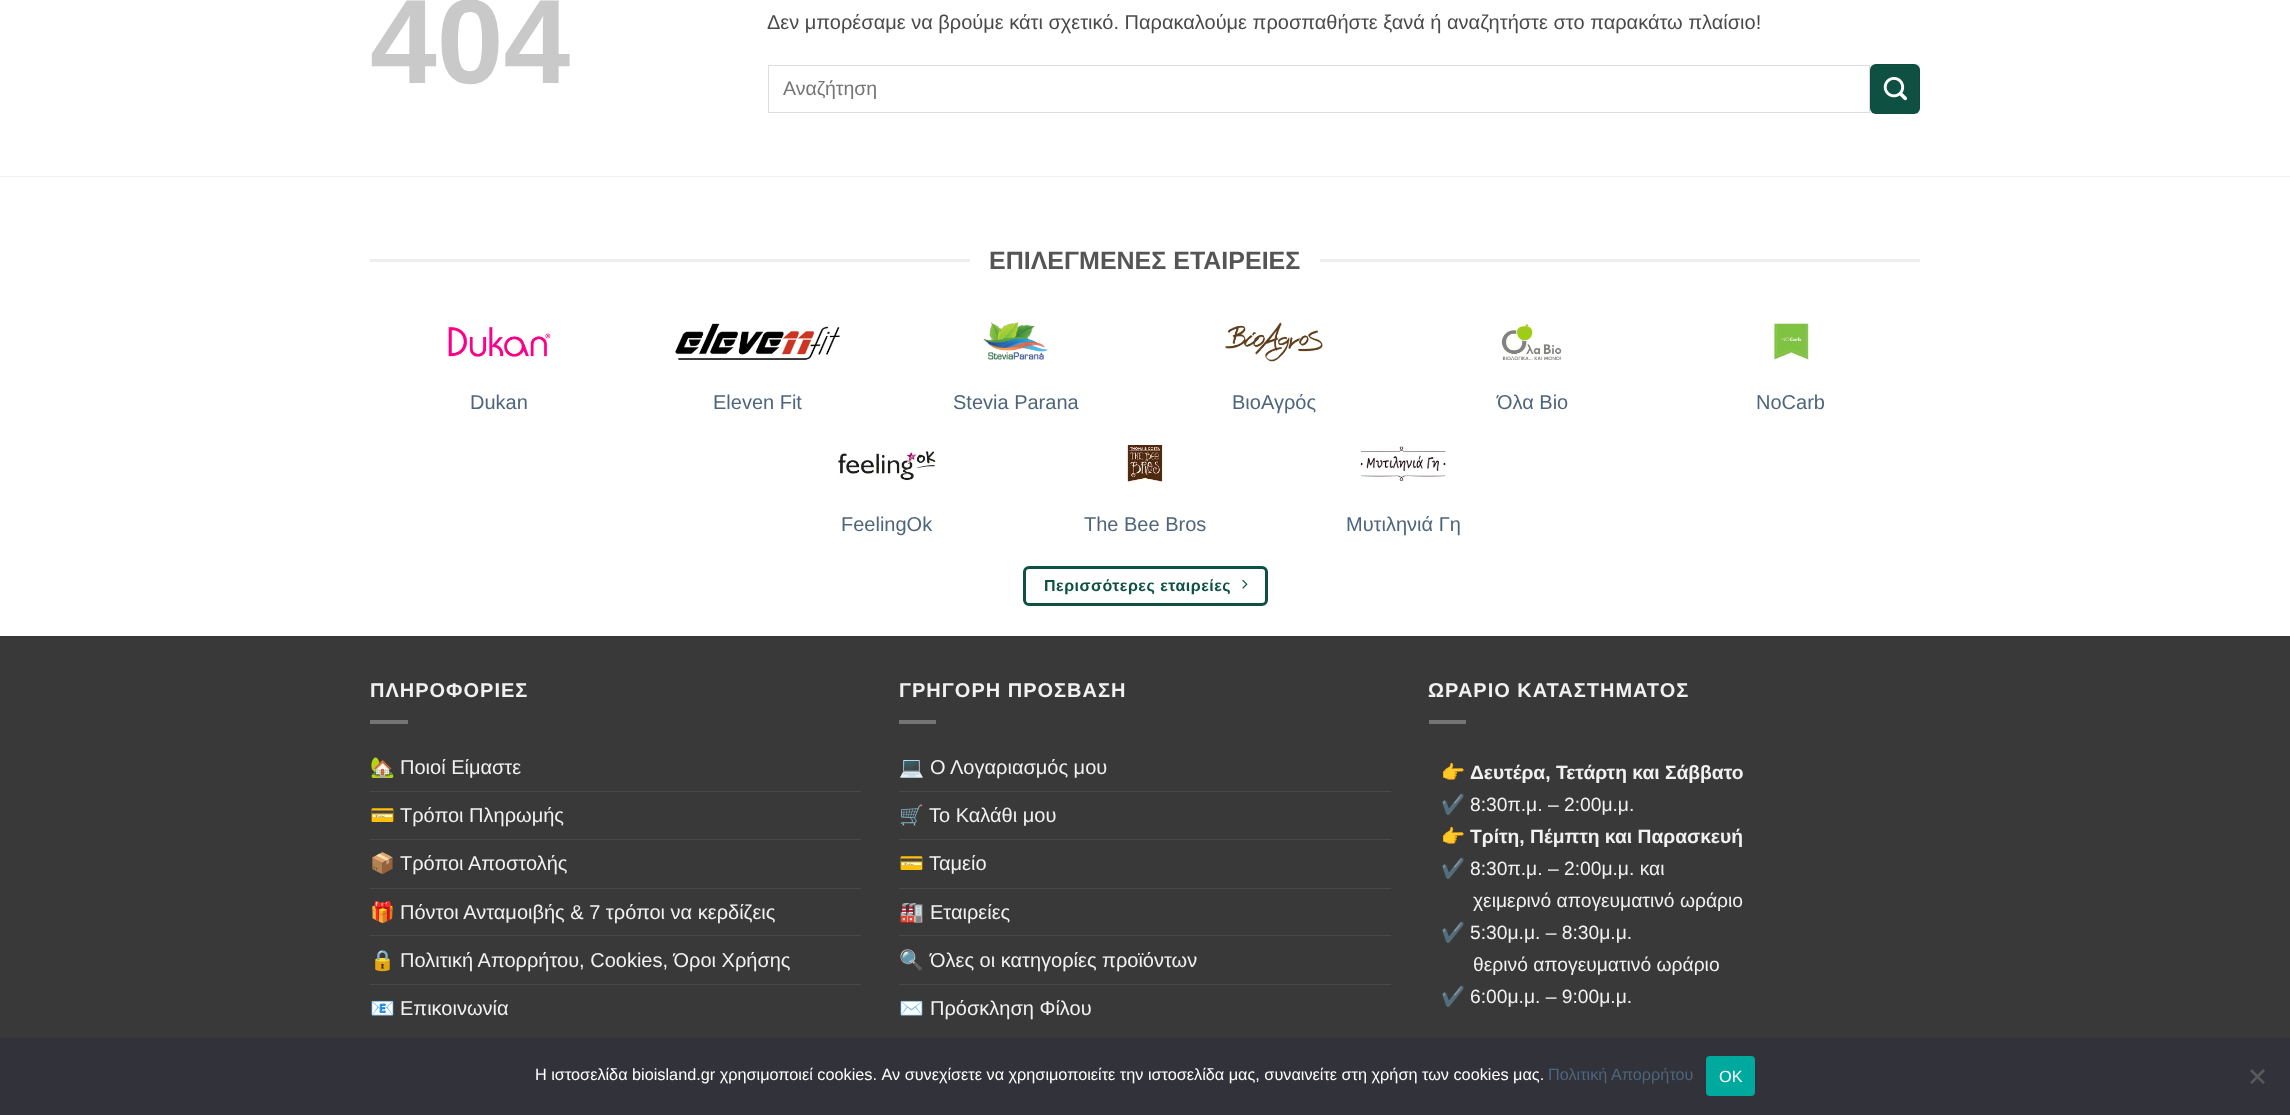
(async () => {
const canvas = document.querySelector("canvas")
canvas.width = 2290
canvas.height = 1115
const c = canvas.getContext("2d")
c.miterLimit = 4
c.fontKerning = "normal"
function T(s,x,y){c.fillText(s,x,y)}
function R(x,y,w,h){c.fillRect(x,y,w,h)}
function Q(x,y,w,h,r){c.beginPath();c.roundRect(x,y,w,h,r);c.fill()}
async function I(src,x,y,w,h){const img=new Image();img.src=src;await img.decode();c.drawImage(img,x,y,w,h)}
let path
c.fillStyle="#fff"
R(0,0,2290,1115)
c.font="bold 120px Liberation Sans"
c.fillStyle="#c9c9c9"
T("404",370,83)
c.font="20px Liberation Sans"
c.fillStyle="#4a4a4a"
T("Δεν μπορέσαμε να βρούμε κάτι σχετικό. Παρακαλούμε προσπαθήστε ξανά ή αναζητήστε στο παρακάτω πλαίσιο!",767,29)
c.strokeStyle="#ddd"
c.strokeRect(768.5,65.5,1101,47)
c.font="19.5px Liberation Sans"
c.fillStyle="#757575"
T("Αναζήτηση",783,95)
c.fillStyle="#0e5042"
Q(1870,64,50,50,6)
c.strokeStyle="#0000000d"
c.strokeRect(1870.5,64.5,49,49)
await I("1.png",1883,76,24,25)
c.fillStyle="#f2f2f2"
R(0,176,2290,1)
c.fillStyle="#eee"
R(370,259,600,3)
c.font="bold 25px Liberation Sans"
c.fillStyle="#555"
T("ΕΠΙΛΕΓΜΕΝΕΣ ΕΤΑΙΡΕΙΕΣ",989,269)
c.fillStyle="#eee"
R(1320,259,600,3)
await I("2.png",446,326,107,31)
c.font="20px Liberation Sans"
c.fillStyle="#4e657b"
T("Dukan",470,409)
await I("3.png",675,323,165,37)
T("Eleven Fit",713,409)
await I("4.png",983,322,65,38)
T("Stevia Parana",953,409)
await I("5.png",1225,322,98,40)
T("ΒιοΑγρός",1232,409)
await I("6.png",1501,323,61,37)
T("Όλα Bio",1497,409)
await I("7.png",1772,322,37,38)
T("NoCarb",1756,409)
await I("8.png",838,451,98,30)
T("FeelingOk",841,531)
await I("9.png",1127,445,37,38)
T("The Bee Bros",1084,531)
await I("10.png",1360,446,86,36)
T("Μυτιληνιά Γη",1346,531)
c.beginPath()
c.roundRect(1024.5,567.5,242,37,4.5)
c.strokeStyle="#0e5042"
c.lineWidth=3
c.stroke()
c.letterSpacing="0.5px"
c.font="bold 16px Liberation Sans"
c.fillStyle="#0e5042"
T("Περισσότερες εταιρείες",1044,591)
await I("11.png",1242,579,6,10)
c.fillStyle="#393939"
R(0,637,2290,401)
c.fillStyle="#363636"
R(0,636,2290,1)
c.letterSpacing="1px"
c.font="bold 20px Liberation Sans"
c.fillStyle="#f1f1f1"
T("ΠΛΗΡΟΦΟΡΙΕΣ",370,697)
c.fillStyle="#747474"
R(370,720,38,4)
c.letterSpacing="0px"
c.font="20px Noto Color Emoji"
c.fillStyle="#f1f1f1"
T("🏡",370,774)
c.font="20px Liberation Sans"
T("Ποιοί Είμαστε",400,774)
c.fillStyle="#494949"
R(370,791,491,1)
c.font="20px Noto Color Emoji"
c.fillStyle="#f1f1f1"
T("💳",370,822)
c.font="20px Liberation Sans"
T("Τρόποι Πληρωμής",400,822)
c.fillStyle="#494949"
R(370,839,491,1)
c.font="20px Noto Color Emoji"
c.fillStyle="#f1f1f1"
T("📦",370,870)
c.font="20px Liberation Sans"
T("Τρόποι Αποστολής",400,870)
c.fillStyle="#494949"
R(370,888,491,1)
c.font="20px Noto Color Emoji"
c.fillStyle="#f1f1f1"
T("🎁",370,919)
c.font="20px Liberation Sans"
T("Πόντοι Ανταμοιβής & 7 τρόποι να κερδίζεις",400,919)
c.fillStyle="#494949"
R(370,935,491,1)
c.font="20px Noto Color Emoji"
c.fillStyle="#f1f1f1"
T("🔒",370,967)
c.font="20px Liberation Sans"
T("Πολιτική Απορρήτου, Cookies, Όροι Χρήσης",400,967)
c.fillStyle="#494949"
R(370,984,491,1)
c.font="20px Noto Color Emoji"
c.fillStyle="#f1f1f1"
T("📧",370,1015)
c.font="20px Liberation Sans"
T("Επικοινωνία",400,1015)
c.letterSpacing="1px"
c.font="bold 20px Liberation Sans"
T("ΓΡΗΓΟΡΗ ΠΡΟΣΒΑΣΗ",899,697)
c.fillStyle="#747474"
R(899,720,37,4)
c.letterSpacing="0px"
c.font="20px Noto Color Emoji"
c.fillStyle="#f1f1f1"
T("💻",899,774)
c.font="20px Liberation Sans"
T("Ο Λογαριασμός μου",930,774)
c.fillStyle="#494949"
R(899,791,492,1)
c.font="20px Noto Color Emoji"
c.fillStyle="#f1f1f1"
T("🛒",899,822)
c.font="20px Liberation Sans"
T("Το Καλάθι μου",929,822)
c.fillStyle="#494949"
R(899,839,492,1)
c.font="20px Noto Color Emoji"
c.fillStyle="#f1f1f1"
T("💳",899,870)
c.font="20px Liberation Sans"
T("Ταμείο",929,870)
c.fillStyle="#494949"
R(899,888,492,1)
c.font="20px Noto Color Emoji"
c.fillStyle="#f1f1f1"
T("🏭",899,919)
c.font="20px Liberation Sans"
T("Εταιρείες",930,919)
c.fillStyle="#494949"
R(899,935,492,1)
c.font="20px Noto Color Emoji"
c.fillStyle="#f1f1f1"
T("🔍",899,967)
c.font="20px Liberation Sans"
T("Όλες οι κατηγορίες προϊόντων",930,967)
c.fillStyle="#494949"
R(899,984,492,1)
c.font="20px Noto Color Emoji"
c.fillStyle="#f1f1f1"
T("✉️",899,1015)
c.font="20px Liberation Sans"
T("Πρόσκληση Φίλου",930,1015)
c.letterSpacing="1px"
c.font="bold 20px Liberation Sans"
T("ΩΡΑΡΙΟ ΚΑΤΑΣΤΗΜΑΤΟΣ",1428,697)
c.fillStyle="#747474"
R(1429,720,37,4)
c.letterSpacing="0px"
c.font="19.25px Noto Color Emoji"
c.fillStyle="#f1f1f1"
T("👉",1441,779)
c.font="bold 19.25px Liberation Sans"
T("Δευτέρα, Τετάρτη και Σάββατο",1470,779)
c.font="19.25px Noto Color Emoji"
T("✔️",1441,811)
c.font="19.25px Liberation Sans"
T("8:30π.μ. – 2:00μ.μ.",1470,811)
c.font="19.25px Noto Color Emoji"
T("👉",1441,843)
c.font="bold 19.25px Liberation Sans"
T("Τρίτη, Πέμπτη και Παρασκευή",1470,843)
c.font="19.25px Noto Color Emoji"
T("✔️",1441,875)
c.font="19.25px Liberation Sans"
T("8:30π.μ. – 2:00μ.μ. και",1470,875)
T("χειμερινό απογευματινό ωράριο",1473,907)
c.font="19.25px Noto Color Emoji"
T("✔️",1441,939)
c.font="19.25px Liberation Sans"
T("5:30μ.μ. – 8:30μ.μ.",1470,939)
T("θερινό απογευματινό ωράριο",1473,971)
c.font="19.25px Noto Color Emoji"
T("✔️",1441,1003)
c.font="19.25px Liberation Sans"
T("6:00μ.μ. – 9:00μ.μ.",1470,1003)
c.fillStyle="#32323a"
R(0,1038,2290,77)
c.font="16.25px Liberation Sans"
c.fillStyle="#fff"
T("Η ιστοσελίδα bioisland.gr χρησιμοποιεί cookies. Αν συνεχίσετε να χρησιμοποιείτε την ιστοσελίδα μας, συναινείτε στη χρήση των cookies μας.",535,1080)
c.fillStyle="#4e657b"
T("Πολιτική Απορρήτου",1548,1080)
c.fillStyle="#00a99d"
Q(1706,1056,49,40,4)
c.fillStyle="#fff"
T("ΟΚ",1719,1082)
c.fillStyle="#59595d"
path = new Path2D("M2263 1069l2 2l-13 13l-2-1.5z")
c.fill(path)
path = new Path2D("M2250 1071l2-2l13 13.5l-2 1.5z")
c.fill(path)
})()
